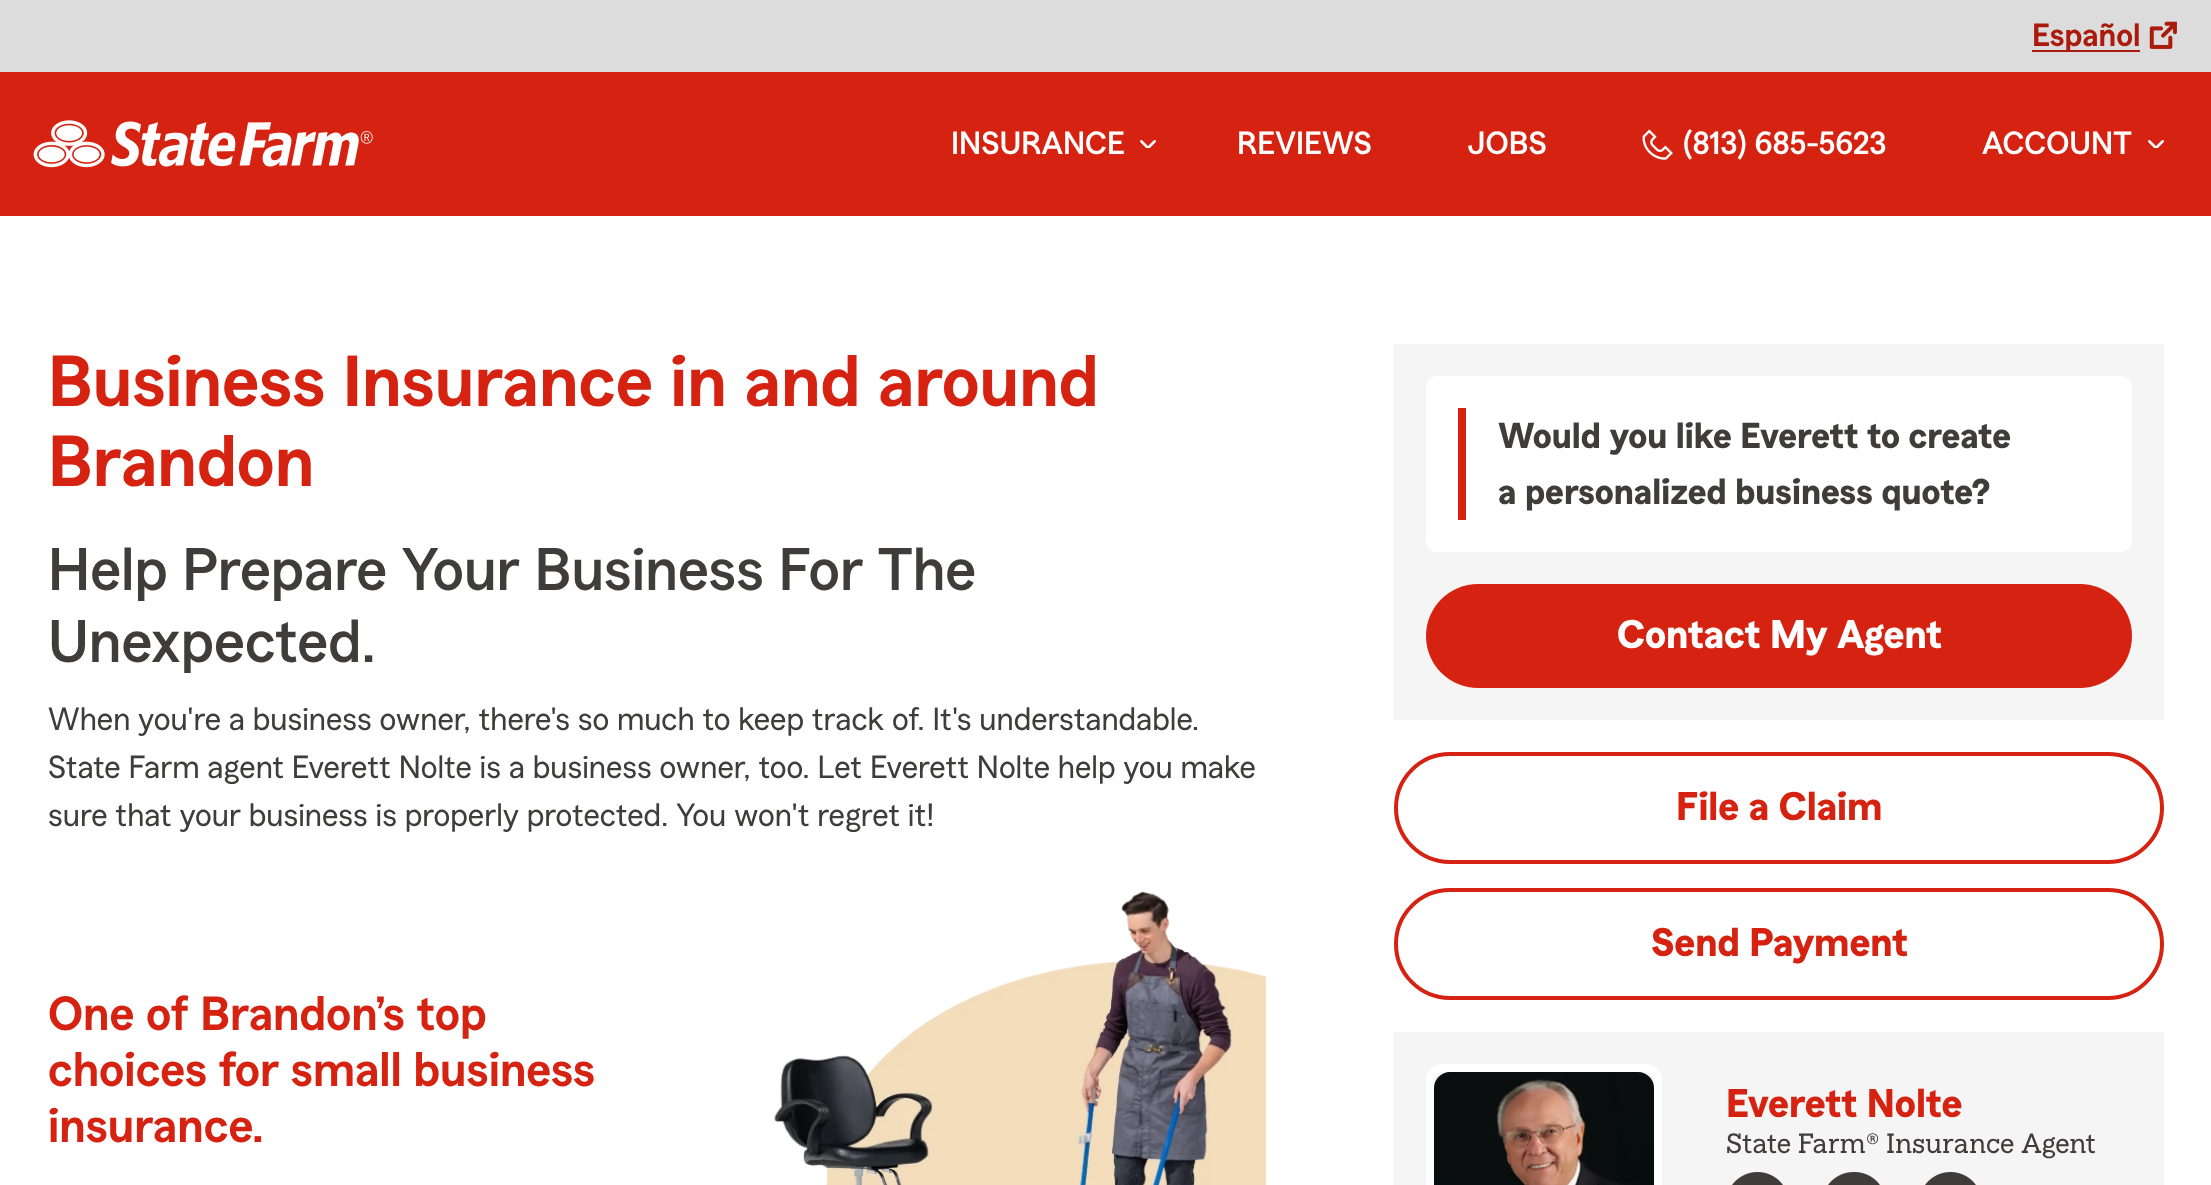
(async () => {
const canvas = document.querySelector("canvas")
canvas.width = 2211
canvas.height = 1185
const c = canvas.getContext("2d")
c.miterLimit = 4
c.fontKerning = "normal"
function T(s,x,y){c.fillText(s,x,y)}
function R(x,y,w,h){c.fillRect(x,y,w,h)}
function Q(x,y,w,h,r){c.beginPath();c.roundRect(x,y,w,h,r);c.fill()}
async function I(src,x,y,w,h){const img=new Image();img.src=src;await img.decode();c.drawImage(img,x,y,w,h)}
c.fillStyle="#fff"
R(0,0,2211,1185)
c.fillStyle="#dcdcdc"
R(0,0,2211,72)
c.fillStyle="#aa1b0d"
R(2032,50,108,2)
c.font="600 32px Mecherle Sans"
T("Español",2032,46)
await I("1.png",2149,21,28,28)
c.fillStyle="#d62311"
R(0,72,2211,144)
await I("2.png",33,120,340,48)
c.font="500 32px Mecherle Sans"
c.fillStyle="#fff"
T("INSURANCE",951,154)
await I("3.png",1140,140,16,8)
T("REVIEWS",1237,154)
T("JOBS",1467,154)
await I("4.png",1642,129,31,31)
T("(813) 685-5623",1683,154)
T("ACCOUNT",1982,154)
await I("3.png",2148,140,16,8)
c.font="600 72px Mecherle Sans"
c.fillStyle="#d62311"
T("Business Insurance in and around",48,406)
T("Brandon",48,486)
c.font="500 60px Mecherle Sans"
c.fillStyle="#403c3c"
T("Help Prepare Your Business For The",48,590)
T("Unexpected.",48,662)
c.font="32px Mecherle Sans"
T("When you're a business owner, there's so much to keep track of. It's understandable.",48,730)
T("State Farm agent Everett Nolte is a business owner, too. Let Everett Nolte help you make",48,778)
T("sure that your business is properly protected. You won't regret it!",48,826)
c.font="600 48px Mecherle Sans"
c.fillStyle="#d62311"
T("One of Brandon’s top",48,1030)
T("choices for small business",48,1086)
T("insurance.",48,1142)
await I("5.png",774,891,492,294)
c.fillStyle="#f5f5f5"
R(1394,344,770,376)
c.fillStyle="#fff"
Q(1426,376,706,176,12)
c.fillStyle="#d62311"
R(1458,408,8,112)
c.font="bold 36px Mecherle Sans"
c.fillStyle="#403c3c"
T("Would you like Everett to create",1498,448)
T("a personalized business quote?",1498,504)
c.fillStyle="#d62311"
Q(1426,584,706,104,52)
c.font="bold 40px Mecherle Sans"
c.fillStyle="#fff"
T("Contact My Agent",1617,648)
c.beginPath()
c.roundRect(1396,754,766,108,54)
c.strokeStyle="#d62311"
c.lineWidth=4
c.stroke()
c.fillStyle="#d62311"
T("File a Claim",1676,820)
c.beginPath()
c.roundRect(1396,890,766,108,54)
c.stroke()
T("Send Payment",1651,956)
c.fillStyle="#f5f5f5"
R(1394,1032,770,153)
c.beginPath()
c.roundRect(1430,1068,228,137,12)
c.strokeStyle="#fff"
c.lineWidth=8
c.stroke()
await I("6.png",1434,1072,220,113)
c.fillStyle="#d62311"
T("Everett Nolte",1726,1117)
c.font="28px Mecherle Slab"
c.fillStyle="#403c3c"
T("State Farm® Insurance Agent",1726,1153)
await I("7.png",1732,1172,51,13)
await I("8.png",1828,1172,52,13)
await I("7.png",1925,1172,51,13)
})()
